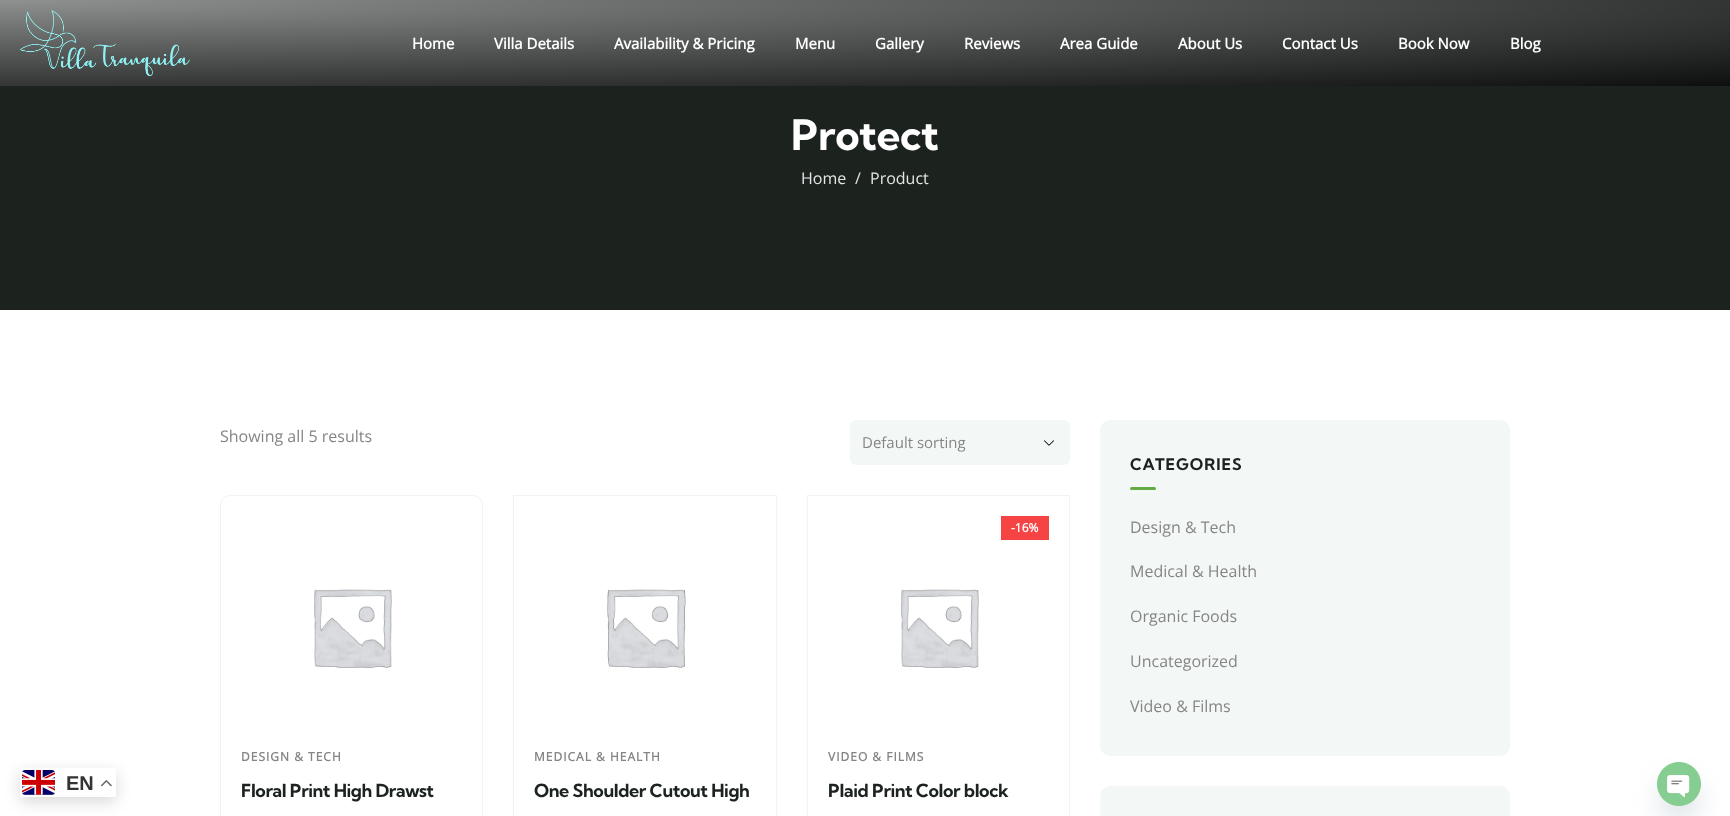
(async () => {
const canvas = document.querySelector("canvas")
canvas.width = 1730
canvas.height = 816
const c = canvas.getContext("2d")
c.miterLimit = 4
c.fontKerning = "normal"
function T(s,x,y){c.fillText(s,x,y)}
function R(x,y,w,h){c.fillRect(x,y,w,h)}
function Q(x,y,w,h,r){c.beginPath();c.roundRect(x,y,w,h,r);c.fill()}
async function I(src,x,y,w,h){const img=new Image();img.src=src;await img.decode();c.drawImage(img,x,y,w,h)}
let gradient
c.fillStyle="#fff"
R(0,0,1730,816)
c.fillStyle="#00000026"
c.filter="blur(7.5px)"
c.beginPath()
c.roundRect(20,773,96,29,2)
c.fill()
c.filter="none"
c.fillStyle="#fff"
Q(20,768,96,29,2)
await I("1.png",22,770,33,25)
c.font="bold 20px Liberation Sans"
c.fillStyle="#333"
T("EN",66,790)
await I("2.png",101,780,11,7)
gradient = c.createRadialGradient(0,0,0,0,0,2447)
gradient.addColorStop(0,"#8e918f")
gradient.addColorStop(1,"#0c0f0d")
c.fillStyle = gradient
c.beginPath()
c.rect(0,0,1730,86)
c.save()
c.clip()
c.scale(1,122 / 2447)
c.fillRect(0,0,1730,16367)
c.restore()
await I("3.png",20,10,170,66)
c.font="bold 15px Open Sans"
c.fillStyle="#fff"
T("Home",412,49)
T("Villa Details",494,49)
T("Availability & Pricing",614,49)
T("Menu",795,49)
T("Gallery",875,49)
T("Reviews",964,49)
T("Area Guide",1060,49)
T("About Us",1178,49)
T("Contact Us",1282,49)
T("Book Now",1398,49)
T("Blog",1510,49)
c.fillStyle="#1c231f"
R(0,86,1730,224)
c.letterSpacing="-0.4px"
c.font="bold 42px Kumbh Sans"
c.fillStyle="#fff"
T("Protect",791,150)
c.letterSpacing="0px"
c.font="16px Open Sans"
c.fillStyle="#e5e5e5"
T("Home",801,184)
T("/",855,184)
T("Product",870,184)
c.fillStyle="#858585"
T("Showing all 5 results",220,442)
c.fillStyle="#f3f8f6"
Q(850,420,220,45,6)
await I("4.png",1044,440,10,6)
c.font="15px Open Sans"
c.fillStyle="#858585"
T("Default sorting",862,448)
c.beginPath()
c.roundRect(220.5,495.5,262,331,9.5)
c.strokeStyle="#f2f2f2"
c.stroke()
await I("5.png",314,589,78,79)
c.letterSpacing="1px"
c.font="bold 12px Open Sans"
T("DESIGN & TECH",241,761)
c.letterSpacing="-0.4px"
c.font="bold 18px Kumbh Sans"
c.fillStyle="#1c231f"
T("Floral Print High Drawst",241,797)
c.strokeStyle="#0000000d"
c.strokeRect(513.5,495.5,263,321)
await I("6.png",607,589,79,79)
c.letterSpacing="1px"
c.font="bold 12px Open Sans"
c.fillStyle="#858585"
T("MEDICAL & HEALTH",534,761)
c.letterSpacing="-0.4px"
c.font="bold 18px Kumbh Sans"
c.fillStyle="#1c231f"
T("One Shoulder Cutout High",534,797)
c.strokeRect(807.5,495.5,262,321)
c.fillStyle="#f64444"
R(1001,516,48,24)
c.letterSpacing="0px"
c.font="bold 12px Open Sans"
c.fillStyle="#fff"
T("-16%",1011,532)
await I("5.png",901,589,78,79)
c.letterSpacing="1px"
c.fillStyle="#858585"
T("VIDEO & FILMS",828,761)
c.letterSpacing="-0.4px"
c.font="bold 18px Kumbh Sans"
c.fillStyle="#1c231f"
T("Plaid Print Color block",828,797)
c.fillStyle="#f3f8f6"
Q(1100,420,410,336,10)
c.letterSpacing="1px"
c.font="bold 16px Kumbh Sans"
c.fillStyle="#1c231f"
T("CATEGORIES",1130,470)
c.fillStyle="#63ab45"
Q(1130,487,26,3,1.5)
c.letterSpacing="0px"
c.font="16px Open Sans"
c.fillStyle="#858585"
T("Design & Tech",1130,533)
T("Medical & Health",1130,577)
T("Organic Foods",1130,622)
T("Uncategorized",1130,667)
T("Video & Films",1130,712)
c.fillStyle="#f3f8f6"
Q(1100,786,410,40,10)
c.fillStyle="#49687e29"
c.filter="blur(12px)"
c.beginPath()
c.roundRect(1657,778,44,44,22)
c.fill()
c.filter="none"
await I("7.png",1657,762,44,44)
})()
